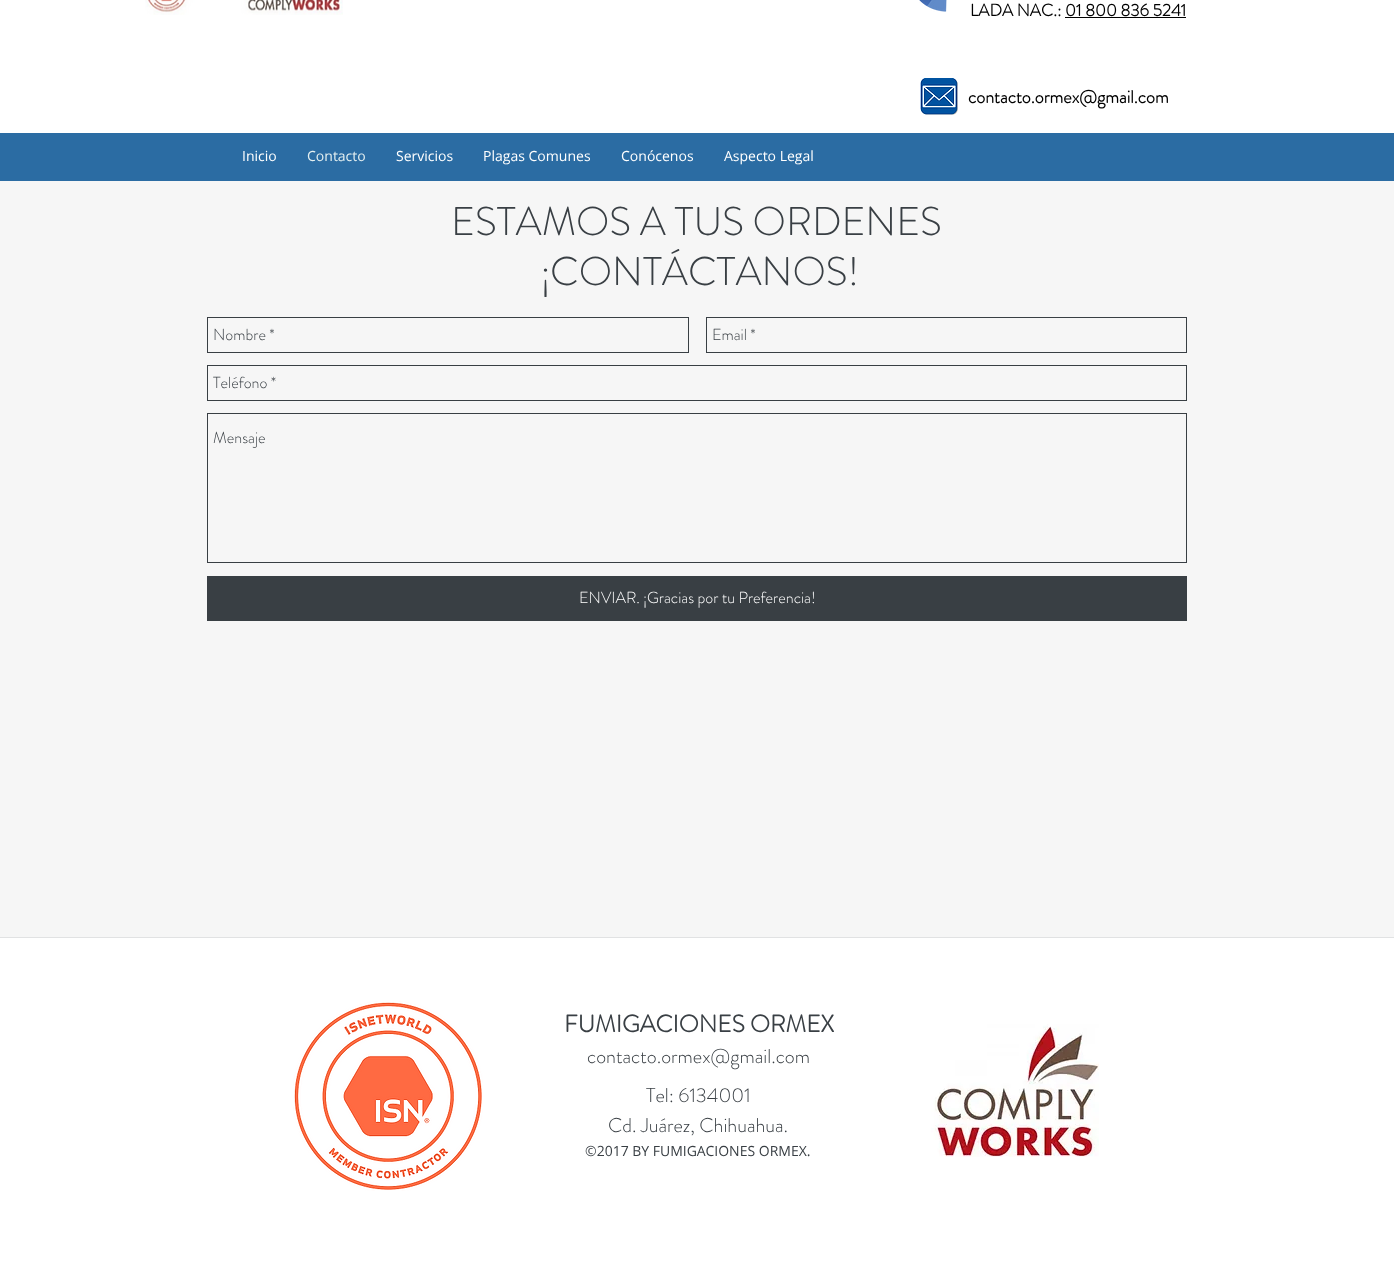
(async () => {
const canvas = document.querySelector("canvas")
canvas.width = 1394
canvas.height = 1281
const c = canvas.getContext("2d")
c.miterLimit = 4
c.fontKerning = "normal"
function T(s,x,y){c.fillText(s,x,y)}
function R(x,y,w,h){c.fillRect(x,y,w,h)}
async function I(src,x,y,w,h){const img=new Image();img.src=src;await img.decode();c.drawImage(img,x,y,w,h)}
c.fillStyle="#fff"
R(0,0,1394,1281)
await I("1.png",145,0,198,15)
await I("2.png",919,0,28,12)
c.font="bold 17px 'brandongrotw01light'"
c.fillStyle="#000"
T("LADA NAC.: 01 800 836 5241",970,16)
R(1065,17,121,1)
await I("3.png",920,78,38,37)
c.font="bold 18px 'brandongrotw01light'"
T("contacto.ormex@gmail.com",968,103)
c.fillStyle="#2b6ca3"
R(0,133,1394,48)
c.font="14px Open Sans"
c.fillStyle="#fff"
T("Inicio",242,161)
c.fillStyle="#e5f0f1"
T("Contacto",307,161)
c.fillStyle="#fff"
T("Servicios",396,161)
T("Plagas Comunes",483,161)
T("Conócenos",621,161)
T("Aspecto Legal",724,161)
c.fillStyle="#f6f6f6"
R(0,181,1394,756)
c.font="300 40px 'brandongrotw01light'"
c.fillStyle="#393f44"
T("ESTAMOS A TUS ORDENES",451,235)
T("¡CONTÁCTANOS!",541,285)
c.strokeStyle="#393f44"
c.strokeRect(207.5,317.5,481,35)
c.font="300 16px 'brandongrotw01light'"
T("Nombre *",213,340)
c.strokeRect(706.5,317.5,480,35)
T("Email *",712,340)
c.strokeRect(207.5,365.5,979,35)
T("Teléfono *",213,388)
c.strokeRect(207.5,413.5,979,149)
T("Mensaje",213,443)
R(207,576,980,45)
c.fillStyle="#fff"
T("ENVIAR. ¡Gracias por tu Preferencia!",579,603)
c.fillStyle="#e1e2e3"
R(0,937,1394,1)
await I("4.png",293,1001,190,190)
c.font="bold 24px 'brandongrotw01light'"
c.fillStyle="#393f44"
T("FUMIGACIONES ORMEX",564,1032)
await I("5.png",931,1024,168,133)
c.font="300 20px 'brandongrotw01light'"
T("contacto.ormex@gmail.com",587,1063)
T("Tel: 6134001",646,1102)
T("Cd. Juárez, Chihuahua.",608,1132)
c.font="14px Open Sans"
T("©2017 BY FUMIGACIONES ORMEX.",585,1156)
})()
